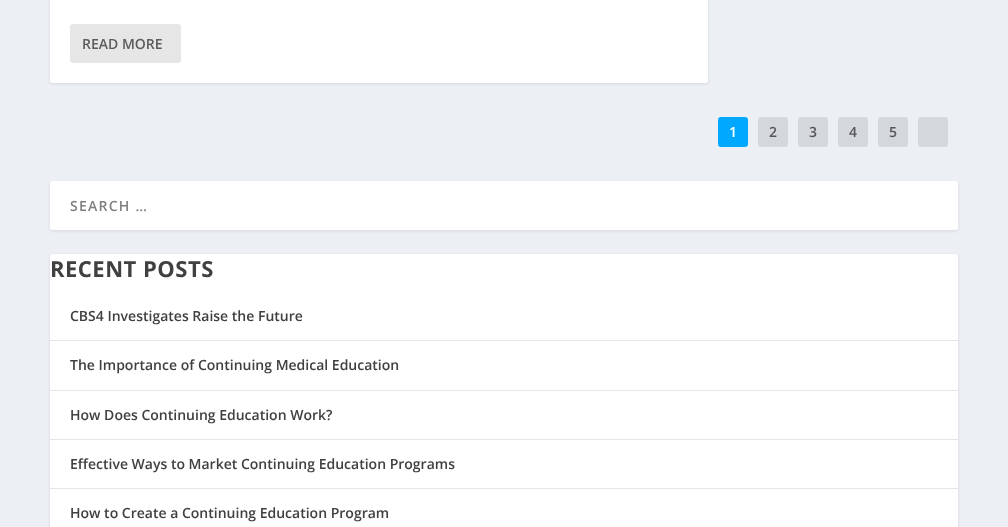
(async () => {
const canvas = document.querySelector("canvas")
canvas.width = 1008
canvas.height = 527
const c = canvas.getContext("2d")
c.miterLimit = 4
c.fontKerning = "normal"
function T(s,x,y){c.fillText(s,x,y)}
function R(x,y,w,h){c.fillRect(x,y,w,h)}
function Q(x,y,w,h,r){c.beginPath();c.roundRect(x,y,w,h,r);c.fill()}
c.fillStyle="#ecf0f5"
R(0,0,1008,527)
c.fillStyle="#0000001a"
c.filter="blur(1.5px)"
c.beginPath()
c.roundRect(50,-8,658,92,3)
c.fill()
c.filter="none"
c.fillStyle="#fff"
Q(50,-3,658,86,3)
c.fillStyle="#e6e6e6"
Q(70,24,111,39,3)
c.font="600 14px Open Sans"
c.fillStyle="#5c5c5c"
T("READ MORE",82,49)
c.fillStyle="#00a8ff"
Q(718,117,30,30,3)
c.fillStyle="#fff"
T("1",729,137)
c.fillStyle="#d4d8dd"
Q(758,117,30,30,3)
c.fillStyle="#555658"
T("2",769,137)
c.fillStyle="#d4d8dd"
Q(798,117,30,30,3)
c.fillStyle="#555658"
T("3",809,137)
c.fillStyle="#d4d8dd"
Q(838,117,30,30,3)
c.fillStyle="#555658"
T("4",849,137)
c.fillStyle="#d4d8dd"
Q(878,117,30,30,3)
c.fillStyle="#555658"
T("5",889,137)
c.fillStyle="#d4d8dd"
Q(918,117,30,30,3)
c.fillStyle="#0000001a"
c.filter="blur(1.5px)"
c.beginPath()
c.roundRect(50,182,908,49,3)
c.fill()
c.filter="none"
c.fillStyle="#fff"
Q(50,181,908,49,3)
c.letterSpacing="1.25px"
c.fillStyle="#808080"
T("SEARCH …",70,211)
c.fillStyle="#0000001a"
c.filter="blur(1.5px)"
c.beginPath()
c.roundRect(50,255,908,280,3)
c.fill()
c.filter="none"
c.fillStyle="#fff"
Q(50,254,908,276,3)
c.letterSpacing="0.5px"
c.font="bold 22px Open Sans"
c.fillStyle="#404040"
T("RECENT POSTS",50,277)
c.fillStyle="#e6e6e6"
R(50,340,908,1)
c.letterSpacing="0px"
c.font="600 14px Open Sans"
c.fillStyle="#404040"
T("CBS4 Investigates Raise the Future",70,321)
c.fillStyle="#e6e6e6"
R(50,390,908,1)
c.fillStyle="#404040"
T("The Importance of Continuing Medical Education",70,370)
c.fillStyle="#e6e6e6"
R(50,439,908,1)
c.fillStyle="#404040"
T("How Does Continuing Education Work?",70,420)
c.fillStyle="#e6e6e6"
R(50,488,908,1)
c.fillStyle="#404040"
T("Effective Ways to Market Continuing Education Programs",70,469)
T("How to Create a Continuing Education Program",70,518)
})()
